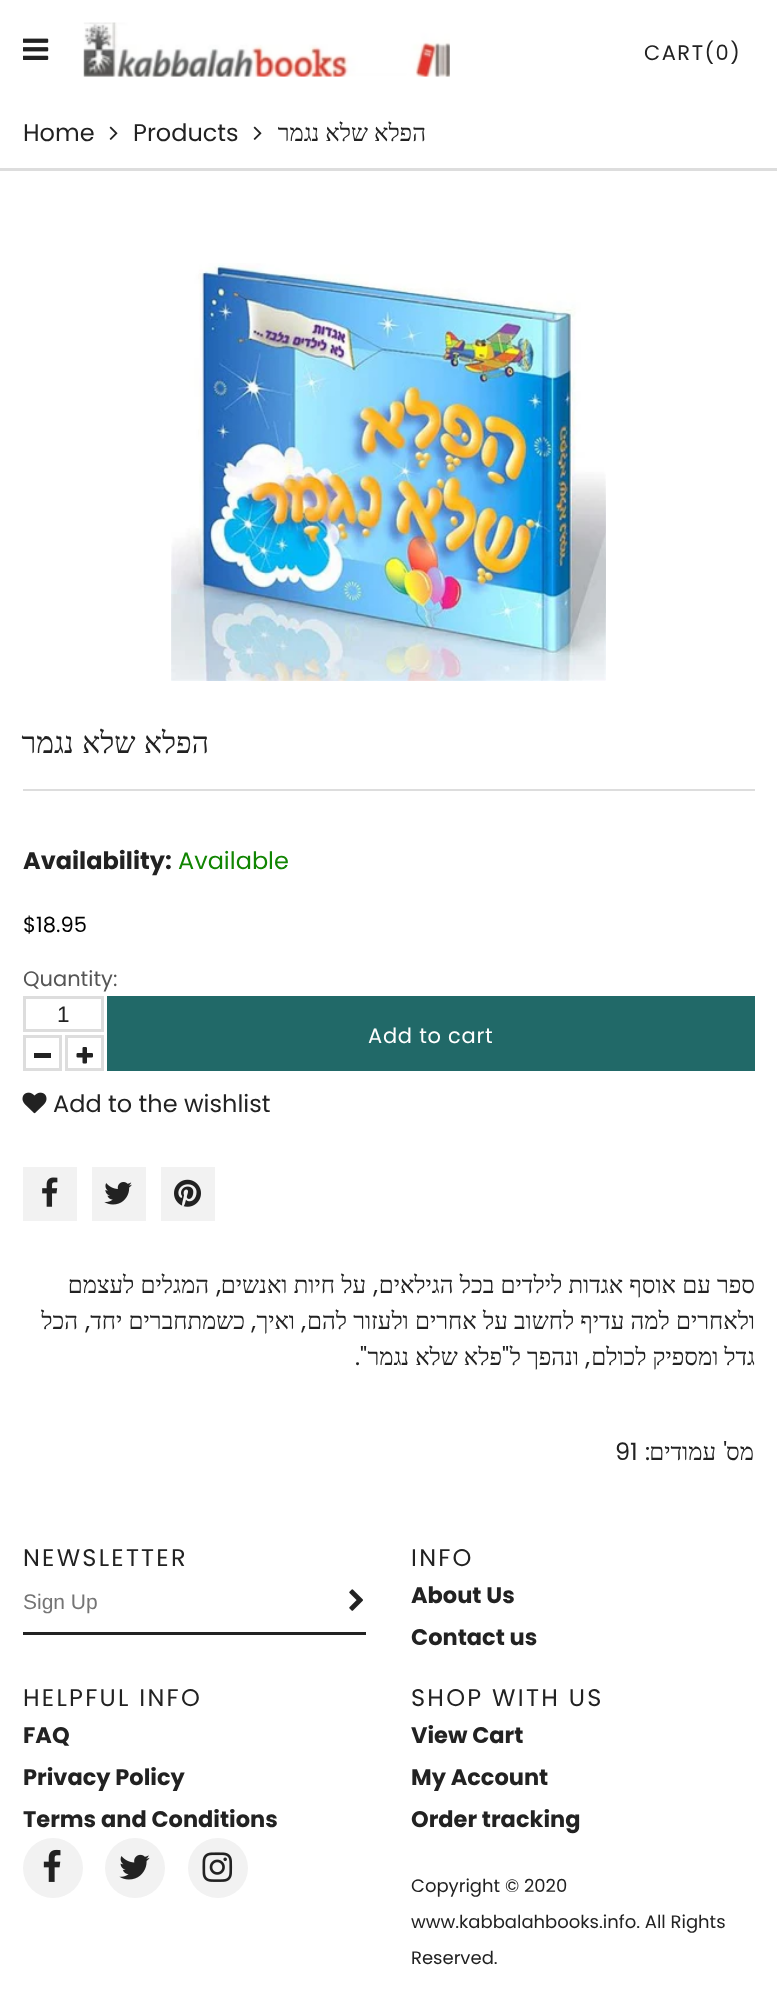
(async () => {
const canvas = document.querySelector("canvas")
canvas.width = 777
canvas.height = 2013
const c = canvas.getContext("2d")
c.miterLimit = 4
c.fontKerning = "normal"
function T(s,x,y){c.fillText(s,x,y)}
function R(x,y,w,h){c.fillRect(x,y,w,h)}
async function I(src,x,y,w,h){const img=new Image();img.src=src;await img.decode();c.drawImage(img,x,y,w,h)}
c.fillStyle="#fff"
R(0,0,777,2013)
await I("1.png",23,38,26,22)
await I("2.png",83,22,367,55)
c.letterSpacing="1.5px"
c.font="21px Poppins"
c.fillStyle="#222"
T("CART(0)",644,60)
c.fillStyle="#ddd"
R(0,168,777,3)
c.letterSpacing="0px"
c.font="24px Poppins"
c.fillStyle="#222"
T("Home",23,141)
await I("3.png",109,126,9,14)
T("Products",133,141)
await I("3.png",253,126,9,14)
c.direction="rtl"
c.font="24px Liberation Serif"
T("הפלא שלא נגמר",426,141)
await I("4.png",171,263,435,418)
c.wordSpacing="1px"
c.font="30px Liberation Serif"
T("הפלא שלא נגמר",209,753)
c.fillStyle="#ddd"
R(23,789,732,2)
c.wordSpacing="0px"
c.direction="ltr"
c.font="bold 24px Poppins"
c.fillStyle="#222"
T("Availability:",23,869)
c.font="24px Poppins"
c.fillStyle="#118502"
T("Available",178,869)
c.font="21px Poppins"
c.fillStyle="#000"
T("$18.95",23,932)
c.fillStyle="#555"
T("Quantity:",23,986)
c.strokeStyle="#ddd"
c.lineWidth=3
c.strokeRect(24.5,997.5,78,33)
c.font="22.5px Liberation Sans"
c.fillStyle="#222"
T("1",57,1022)
c.strokeRect(24.5,1036.5,36,33)
R(34,1053,17,5)
c.strokeRect(66.5,1036.5,36,33)
await I("5.png",76,1047,17,17)
c.fillStyle="#216968"
R(107,996,648,75)
c.letterSpacing="0.75px"
c.font="21px Poppins"
c.fillStyle="#fff"
T("Add to cart",368,1043)
await I("6.png",22,1092,25,22)
c.letterSpacing="0px"
c.font="24px Poppins"
c.fillStyle="#222"
T("Add to the wishlist",53,1112)
c.fillStyle="#f2f2f2"
R(23,1167,54,54)
await I("7.png",42,1177,16,30)
R(92,1167,54,54)
await I("8.png",104,1182,28,23)
R(161,1167,54,54)
await I("9.png",174,1179,27,28)
c.wordSpacing="0.25px"
c.direction="rtl"
c.font="24px Liberation Serif"
c.fillStyle="#222"
T("המגלים לעצמם",209,1293)
c.wordSpacing="0px"
c.font="24px Poppins"
T(",",221,1293)
c.wordSpacing="0.25px"
c.font="24px Liberation Serif"
T("על חיות ואנשים",366,1293)
c.wordSpacing="0px"
c.font="24px Poppins"
T(",",378,1293)
c.wordSpacing="0.25px"
c.font="24px Liberation Serif"
T("ספר עם אוסף אגדות לילדים בכל הגילאים",755,1293)
c.wordSpacing="0px"
T("הכל",78,1329)
c.font="24px Poppins"
T(",",90,1329)
c.wordSpacing="0.25px"
c.font="24px Liberation Serif"
T("כשמתחברים יחד",245,1329)
c.wordSpacing="0px"
c.font="24px Poppins"
T(",",256,1329)
c.font="24px Liberation Serif"
T("ואיך",295,1329)
c.font="24px Poppins"
T(",",306,1329)
c.wordSpacing="0.25px"
c.font="24px Liberation Serif"
T("ולאחרים למה עדיף לחשוב על אחרים ולעזור להם",755,1329)
c.wordSpacing="0px"
c.font="24px Poppins"
T("\".",367,1365)
c.font="24px Liberation Serif"
T("פלא שלא נגמר",502,1365)
c.font="24px Poppins"
T("\"",509,1365)
c.font="24px Liberation Serif"
T("ונהפך ל",579,1365)
c.font="24px Poppins"
T(",",590,1365)
c.font="24px Liberation Serif"
T("גדל ומספיק לכולם",755,1365)
c.direction="ltr"
c.font="24px Poppins"
T("91",615,1460)
c.direction="rtl"
T(":",650,1460)
c.font="24px Liberation Serif"
T("עמודים",716,1460)
c.font="24px Poppins"
T("'",727,1460)
c.font="24px Liberation Serif"
T("מס",754,1460)
c.letterSpacing="2.25px"
c.direction="ltr"
c.font="24px Poppins"
T("NEWSLETTER",23,1566)
R(23,1632,343,3)
c.letterSpacing="0px"
c.font="21px Liberation Sans"
c.fillStyle="#757575"
T("Sign Up",23,1609)
await I("10.png",349,1589,14,22)
c.letterSpacing="2.25px"
c.font="24px Poppins"
c.fillStyle="#222"
T("INFO",411,1566)
c.letterSpacing="0px"
c.font="bold 22.5px Poppins"
T("About Us",411,1603)
T("Contact us",411,1645)
c.letterSpacing="2.25px"
c.font="24px Poppins"
T("HELPFUL INFO",23,1706)
c.letterSpacing="0px"
c.font="bold 22.5px Poppins"
T("FAQ",23,1743)
T("Privacy Policy",23,1785)
T("Terms and Conditions",23,1827)
c.letterSpacing="2.25px"
c.font="24px Poppins"
T("SHOP WITH US",411,1706)
c.letterSpacing="0px"
c.font="bold 22.5px Poppins"
T("View Cart",411,1743)
T("My Account",411,1785)
T("Order tracking",411,1827)
c.fillStyle="#f2f2f2"
c.beginPath()
c.arc(53,1868,30,0,7)
c.fill()
await I("11.png",43,1849,18,33)
c.beginPath()
c.arc(135,1868,30,0,7)
c.fill()
await I("12.png",119,1854,31,26)
c.beginPath()
c.arc(218,1868,30,0,7)
c.fill()
await I("13.png",202,1852,31,30)
c.font="18px Poppins"
c.fillStyle="#222"
T("Copyright © 2020",411,1892)
T("www.kabbalahbooks.info. All Rights",411,1928)
T("Reserved.",411,1964)
})()
